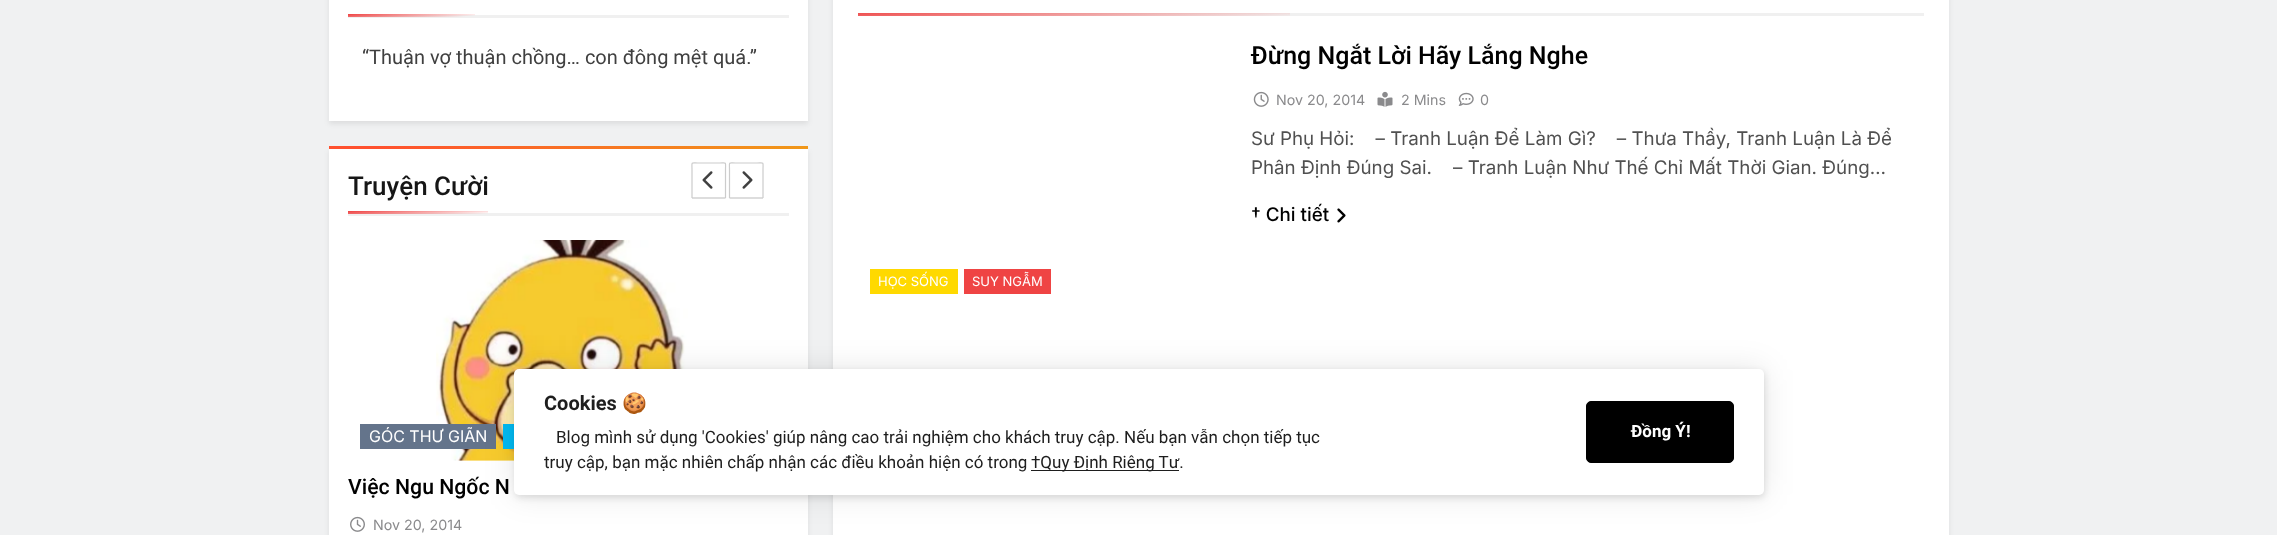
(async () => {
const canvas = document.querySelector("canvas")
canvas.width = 2277
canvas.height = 535
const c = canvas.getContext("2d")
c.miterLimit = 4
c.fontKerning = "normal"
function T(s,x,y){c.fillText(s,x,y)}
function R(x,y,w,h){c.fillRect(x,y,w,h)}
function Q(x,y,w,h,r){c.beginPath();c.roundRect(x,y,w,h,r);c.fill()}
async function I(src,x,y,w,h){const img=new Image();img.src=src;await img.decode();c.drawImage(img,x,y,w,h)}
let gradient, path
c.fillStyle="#f0f1f2"
R(0,0,2277,535)
c.fillStyle="#00000014"
c.filter="blur(2.5px)"
c.beginPath()
c.rect(329,-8,479,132)
c.fill()
c.filter="none"
c.fillStyle="#fff"
R(329,0,479,121)
c.fillStyle="#f0f0f0"
R(348,15,441,3)
gradient = c.createLinearGradient(411,9,412,21)
gradient.addColorStop(0,"#ef4444")
gradient.addColorStop(1,"#ef444400")
c.fillStyle = gradient
R(348,14,127,3)
c.font="20px Roboto"
c.fillStyle="#404040"
T("“Thuận vợ thuận chồng… con đông mệt quá.”",362,64)
c.fillStyle="#00000014"
c.filter="blur(2.5px)"
c.beginPath()
c.rect(329,151,479,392)
c.fill()
c.filter="none"
c.fillStyle="#fff"
R(329,149,479,386)
gradient = c.createLinearGradient(448,27,688,268)
gradient.addColorStop(.1,"#ff512f")
gradient.addColorStop(1,"#f09819")
c.fillStyle = gradient
R(329,146,479,3)
c.fillStyle="#f0f0f0"
R(348,213,441,3)
c.font="500 26px Roboto"
c.fillStyle="#161616"
T("Truyện Cười",348,195)
gradient = c.createLinearGradient(417,206,418,219)
gradient.addColorStop(0,"#ef4444")
gradient.addColorStop(1,"#ef444400")
c.fillStyle = gradient
R(348,211,140,3)
path = new Path2D("M725.5 198h-33.5")
c.strokeStyle="#bbb"
c.lineWidth=1.2
c.stroke(path)
path = new Path2D("M692 198v-28.5c0-8-1.5-6.5 6-6.5h21.5c7.5 0 6-1.5 6 6.5v28.5")
c.strokeStyle="#ccc"
c.stroke(path)
await I("1.png",702,171,11,18)
path = new Path2D("M763 198h-33.5")
c.strokeStyle="#bbb"
c.stroke(path)
path = new Path2D("M729.5 198v-28.5c0-8-1.5-6.5 6-6.5h21.5c7.5 0 6-1.5 6 6.5v28.5")
c.strokeStyle="#ccc"
c.stroke(path)
await I("2.png",742,171,11,18)
await I("3.png",436,240,252,221)
c.fillStyle="#64748b"
R(360,424,136,25)
c.font="16px Inter"
c.fillStyle="#fff"
T("GÓC THƯ GIÃN",369,442)
c.fillStyle="#03baf2"
R(503,424,11,25)
c.font="500 21.25px Roboto"
c.fillStyle="#000"
T("Việc Ngu Ngốc N",348,494)
await I("4.png",350,516,15,16)
c.font="14.25px Inter"
c.fillStyle="#8a8a8c"
T("Nov 20, 2014",373,530)
c.fillStyle="#00000014"
c.filter="blur(2.5px)"
c.beginPath()
c.rect(833,-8,1116,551)
c.fill()
c.filter="none"
c.fillStyle="#fff"
R(833,0,1116,535)
c.fillStyle="#f0f0f0"
R(1290,13,634,3)
gradient = c.createLinearGradient(1073,-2.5,1075,30)
gradient.addColorStop(0,"#ef4444")
gradient.addColorStop(1,"#f0f0f0")
c.fillStyle = gradient
R(858,13,432,3)
c.font="500 25px Roboto"
c.fillStyle="#000"
T("Đừng Ngắt Lời Hãy Lắng Nghe",1251,64)
await I("5.png",1253,91,16,16)
c.font="14.25px Inter"
c.fillStyle="#8a8a8c"
T("Nov 20, 2014",1276,105)
await I("6.png",1377,91,16,16)
T("2 Mins",1401,105)
await I("7.png",1458,92,16,14)
T("0",1480,105)
c.font="18.75px Inter"
c.fillStyle="#505050"
T("Sư Phụ Hỏi:    – Tranh Luận Để Làm Gì?    – Thưa Thầy, Tranh Luận Là Để",1251,145)
T("Phân Định Đúng Sai.    – Tranh Luận Như Thế Chỉ Mất Thời Gian. Đúng…",1251,174)
c.font="500 18.75px Inter"
c.fillStyle="#000"
T("† Chi tiết",1251,221)
await I("8.png",1337,208,9,15)
c.fillStyle="#ffd900"
R(870,269,88,25)
c.font="13px Inter"
c.fillStyle="#fff"
T("HỌC SỐNG",878,286)
c.fillStyle="#ef4444"
R(964,269,87,25)
c.fillStyle="#fff"
T("SUY NGẪM",972,286)
c.fillStyle="#0000001a"
c.filter="blur(3px)"
c.beginPath()
c.roundRect(515,371,1250,127,5)
c.fill()
c.filter="none"
c.filter="blur(15.5px)"
c.beginPath()
c.roundRect(514,369,1250,126,5)
c.fill()
c.filter="none"
c.fillStyle="#fff"
Q(514,369,1250,126,5)
c.font="bold 20px Roboto"
c.fillStyle="#1e1e1e"
T("Cookies",544,410)
c.font="bold 20px Noto Color Emoji"
T("🍪",622,410)
c.font="17px Roboto"
T("Blog mình sử dụng 'Cookies' giúp nâng cao trải nghiệm cho khách truy cập. Nếu bạn vẫn chọn tiếp tục",556,443)
T("truy cập, bạn mặc nhiên chấp nhận các điều khoản hiện có trong",544,468)
R(1031,470,148,1)
T("†Quy Định Riêng Tư.",1031,468)
c.fillStyle="#000"
c.beginPath()
c.roundRect(1586.5,401.5,147,61,4.5)
c.fill()
c.strokeStyle="#000"
c.lineWidth=1
c.stroke()
c.font="bold 17px Roboto"
c.fillStyle="#fff"
T("Đồng Ý!",1631,437)
})()
